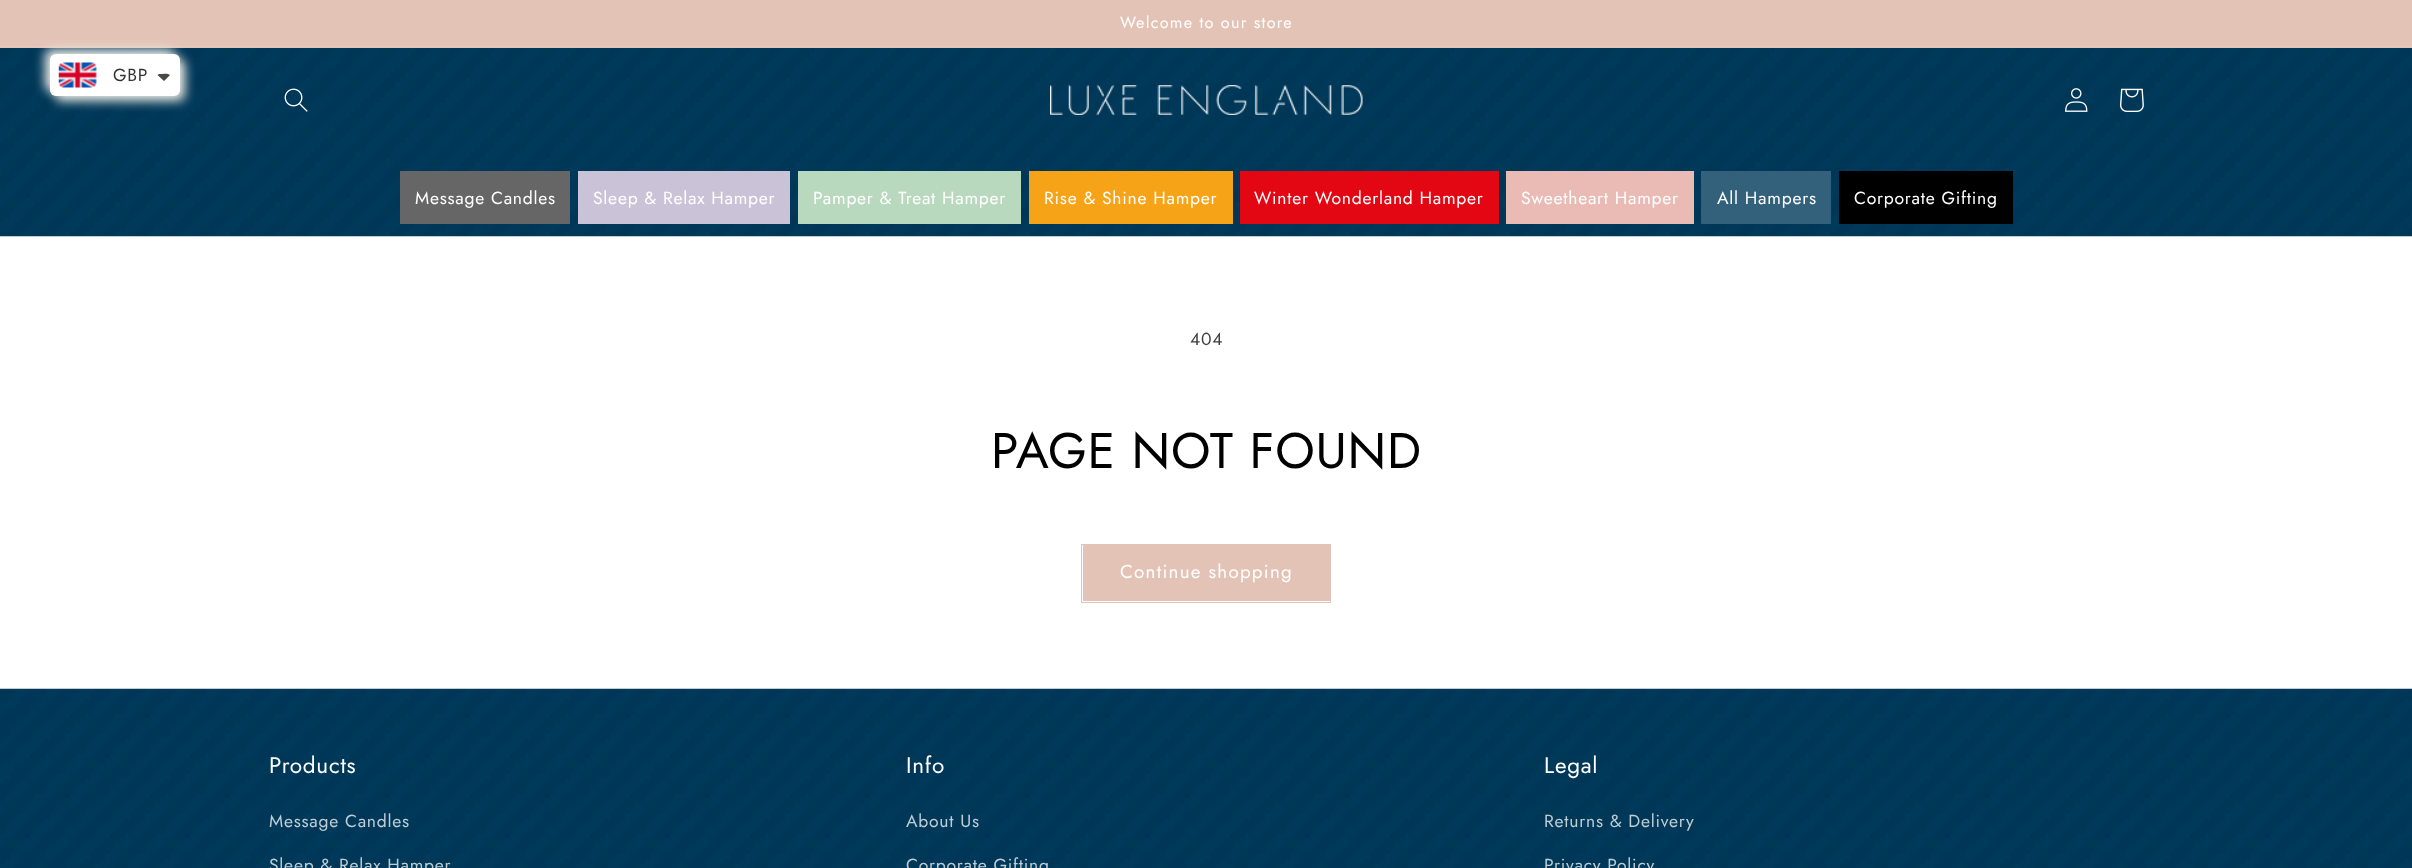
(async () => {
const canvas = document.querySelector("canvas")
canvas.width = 2412
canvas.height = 868
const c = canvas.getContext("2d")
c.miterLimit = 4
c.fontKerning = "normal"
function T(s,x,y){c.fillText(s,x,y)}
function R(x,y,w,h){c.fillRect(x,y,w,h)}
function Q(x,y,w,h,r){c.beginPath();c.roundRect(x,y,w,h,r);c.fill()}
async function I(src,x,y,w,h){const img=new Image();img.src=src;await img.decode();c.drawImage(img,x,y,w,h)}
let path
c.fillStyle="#fff"
R(0,0,2412,868)
c.fillStyle="#e3c3b6"
R(0,0,2412,48)
c.fillStyle="#e5c8bc"
R(0,46,2412,1)
c.letterSpacing="1.25px"
c.font="16.25px Jost"
c.fillStyle="#fff"
T("Welcome to our store",1120,28)
await I("2.png",0,48,2412,189)
c.fillStyle="#e8e8e2"
c.filter="blur(5.5px)"
c.beginPath()
c.roundRect(45,49,130,42,6)
c.fill()
c.filter="none"
c.filter="blur(5.5px)"
c.beginPath()
c.roundRect(55,59,130,42,6)
c.fill()
c.filter="none"
c.fillStyle="#fff"
Q(50,54,130,42,6)
await I("1.png",58,62,39,26)
c.letterSpacing="0.75px"
c.font="17.5px Jost"
c.fillStyle="#333"
T("GBP",113,81)
c.fillStyle="#474942"
path = new Path2D("M160 74c2.5 0 8-1 10 1l-6 6l-6.5-6c.5-.5 1.5-1 2.5-1z")
c.fill(path)
await I("3.png",284,88,24,24)
await I("4.png",1050,85,313,30)
await I("5.png",2065,88,23,24)
await I("6.png",2120,88,24,24)
c.fillStyle="#666"
R(400,171,170,53)
c.fillStyle="#fff"
T("Message Candles",415,204)
c.fillStyle="#cac2d6"
R(578,171,212,53)
c.fillStyle="#fff"
T("Sleep & Relax Hamper",593,204)
c.fillStyle="#b9d9be"
R(798,171,223,53)
c.fillStyle="#fff"
T("Pamper & Treat Hamper",813,204)
c.fillStyle="#f6a318"
R(1029,171,204,53)
c.fillStyle="#fff"
T("Rise & Shine Hamper",1044,204)
c.fillStyle="#e30613"
R(1240,171,259,53)
c.fillStyle="#fff"
T("Winter Wonderland Hamper",1254,204)
c.fillStyle="#e9bbb4"
R(1506,171,188,53)
c.fillStyle="#fff"
T("Sweetheart Hamper",1521,204)
c.fillStyle="#33617c"
R(1701,171,130,53)
c.fillStyle="#fff"
T("All Hampers",1717,204)
c.fillStyle="#000"
R(1839,171,174,53)
c.fillStyle="#fff"
T("Corporate Gifting",1854,204)
c.fillStyle="#404040"
T("404",1190,345)
c.font="50px Jost"
c.fillStyle="#000"
T("PAGE NOT FOUND",991,468)
c.strokeStyle="#e3c3b6"
c.strokeRect(1081.5,544.5,249,58)
c.fillStyle="#e3c3b6"
R(1083,545,247,56)
c.letterSpacing="1.25px"
c.font="18.75px Jost"
c.fillStyle="#fff"
T("Continue shopping",1120,578)
await I("7.png",0,688,2412,180)
c.letterSpacing="0.75px"
c.font="22.5px Jost"
T("Products",269,773)
c.font="17.5px Jost"
c.fillStyle="#bfcdd5"
T("Message Candles",269,827)
T("Sleep & Relax Hamper",269,871)
c.font="22.5px Jost"
c.fillStyle="#fff"
T("Info",906,773)
c.font="17.5px Jost"
c.fillStyle="#bfcdd5"
T("About Us",906,827)
T("Corporate Gifting",906,871)
c.font="22.5px Jost"
c.fillStyle="#fff"
T("Legal",1544,773)
c.font="17.5px Jost"
c.fillStyle="#bfcdd5"
T("Returns & Delivery",1544,827)
T("Privacy Policy",1544,871)
})()
